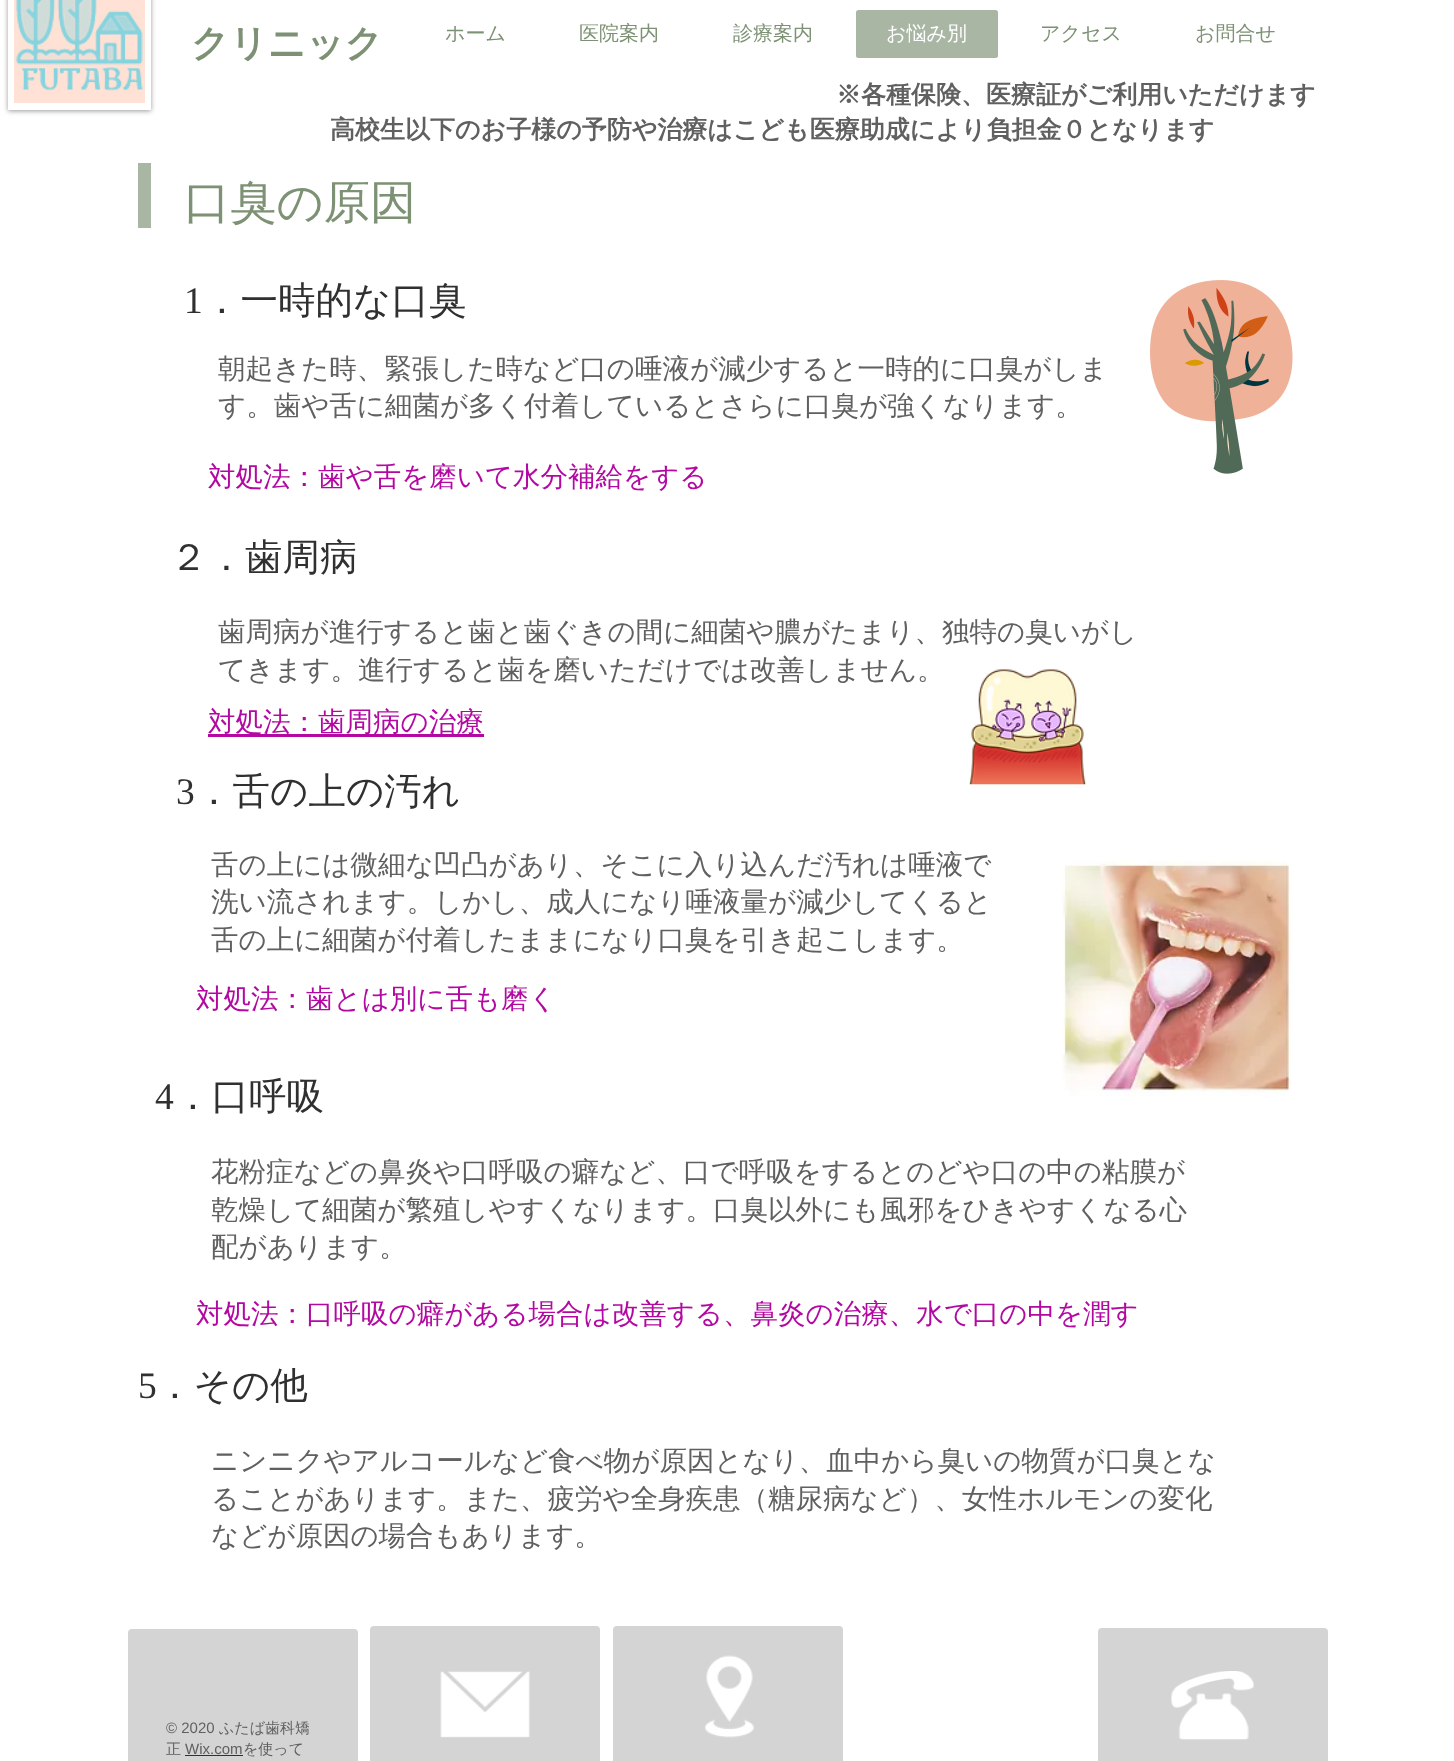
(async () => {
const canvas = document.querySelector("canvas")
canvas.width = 1454
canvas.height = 1761
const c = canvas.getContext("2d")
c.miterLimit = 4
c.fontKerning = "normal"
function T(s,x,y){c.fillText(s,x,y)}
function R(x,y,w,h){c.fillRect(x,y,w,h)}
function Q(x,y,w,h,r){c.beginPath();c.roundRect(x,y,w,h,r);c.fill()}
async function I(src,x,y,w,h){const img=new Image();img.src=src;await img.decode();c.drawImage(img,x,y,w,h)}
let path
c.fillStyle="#fff"
R(0,0,1454,1761)
c.save()
path = new Path2D("M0 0h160v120h-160zm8-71h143v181h-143z")
c.clip(path,"evenodd")
c.fillStyle="#00000066"
c.filter="blur(2.5px)"
c.beginPath()
c.rect(8,-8,143,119)
c.fill()
c.filter="none"
c.restore()
await I("1.png",14,0,131,103)
c.font="bold 37.5px WenQuanYi Zen Hei"
c.fillStyle="#7d9174"
T("クリニック",191,56)
c.font="500 20px WenQuanYi Zen Hei"
T("ホーム",445,40)
T("医院案内",579,40)
T("診療案内",733,40)
c.fillStyle="#a9b6a4"
Q(856,10,142,48,2.5)
c.fillStyle="#fff"
T("お悩み別",886,40)
c.fillStyle="#7d9174"
T("アクセス",1040,40)
T("お問合せ",1195,40)
c.font="bold 25px WenQuanYi Zen Hei"
c.fillStyle="#606060"
T("※各種保険、医療証がご利用いただけます",836,103)
T("高校生以下のお子様の予防や治療はこども医療助成により負担金０となります",330,138)
c.fillStyle="#a9b6a4"
R(138,163,13,65)
c.font="500 46.25px WenQuanYi Zen Hei"
c.fillStyle="#7d9174"
T("口臭の原因",184,218)
c.font="37.5px Liberation Serif"
c.fillStyle="#303030"
T("1",184,313)
c.font="500 37.5px WenQuanYi Zen Hei"
T("．一時的な口臭",203,313)
await I("2.png",1150,280,143,194)
c.font="500 27.5px WenQuanYi Zen Hei"
c.fillStyle="#606060"
T("朝起きた時、緊張した時など口の唾液が減少すると一時的に口臭がしま",218,378)
T("す。歯や舌に細菌が多く付着しているとさらに口臭が強くなります。",218,415)
c.fillStyle="#b309a2"
T("対処法：歯や舌を磨いて水分補給をする",208,486)
c.font="500 37.5px WenQuanYi Zen Hei"
c.fillStyle="#303030"
T("２．歯周病",170,570)
c.font="500 27.5px WenQuanYi Zen Hei"
c.fillStyle="#606060"
T("歯周病が進行すると歯と歯ぐきの間に細菌や膿がたまり、独特の臭いがし",218,641)
T("てきます。進行すると歯を磨いただけでは改善しません。",218,679)
c.fillStyle="#b309a2"
R(208,734,276,3)
T("対処法：歯周病の治療",208,731)
await I("3.png",969,669,118,116)
c.font="37.5px Liberation Serif"
c.fillStyle="#303030"
T("3",176,804)
c.font="500 37.5px WenQuanYi Zen Hei"
T("．舌の上の汚れ",195,804)
c.font="500 27.5px WenQuanYi Zen Hei"
c.fillStyle="#606060"
T("舌の上には微細な凹凸があり、そこに入り込んだ汚れは唾液で",211,874)
T("洗い流されます。しかし、成人になり唾液量が減少してくると",211,911)
T("舌の上に細菌が付着したままになり口臭を引き起こします。",211,949)
await I("4.png",1062,861,229,235)
c.fillStyle="#b309a2"
T("対処法：歯とは別に舌も磨く",196,1008)
c.font="37.5px Liberation Serif"
c.fillStyle="#303030"
T("4",155,1109)
c.font="500 37.5px WenQuanYi Zen Hei"
T("．口呼吸",174,1109)
c.font="500 27.5px WenQuanYi Zen Hei"
c.fillStyle="#606060"
T("花粉症などの鼻炎や口呼吸の癖など、口で呼吸をするとのどや口の中の粘膜が",211,1181)
T("乾燥して細菌が繁殖しやすくなります。口臭以外にも風邪をひきやすくなる心",211,1219)
T("配があります。",211,1256)
c.fillStyle="#b309a2"
T("対処法：口呼吸の癖がある場合は改善する、鼻炎の治療、水で口の中を潤す",196,1323)
c.font="37.5px Liberation Serif"
c.fillStyle="#303030"
T("5",138,1398)
c.font="500 37.5px WenQuanYi Zen Hei"
T("．その他",156,1398)
c.font="500 27.5px WenQuanYi Zen Hei"
c.fillStyle="#606060"
T("ニンニクやアルコールなど食べ物が原因となり、血中から臭いの物質が口臭とな",211,1470)
T("ることがあります。また、疲労や全身疾患（糖尿病など）、女性ホルモンの変化",211,1508)
T("などが原因の場合もあります。",211,1545)
c.fillStyle="#d4d4d4"
Q(128,1629,230,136,4)
c.font="15px Liberation Sans"
c.fillStyle="#606060"
T("© 2020",166,1733)
c.font="500 15px WenQuanYi Zen Hei"
T("ふたば歯科矯",219,1733)
T("正",166,1754)
c.font="15px Liberation Sans"
T("Wix.com",185,1754)
c.fillStyle="#303030"
R(185,1755,58,1)
c.font="500 15px WenQuanYi Zen Hei"
c.fillStyle="#606060"
T("を使って",243,1754)
c.fillStyle="#d4d4d4"
Q(370,1626,230,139,4)
await I("5.png",440,1671,90,67)
Q(613,1626,230,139,4)
await I("6.png",705,1655,49,83)
Q(1098,1628,230,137,4)
await I("7.png",1171,1671,83,69)
})()
